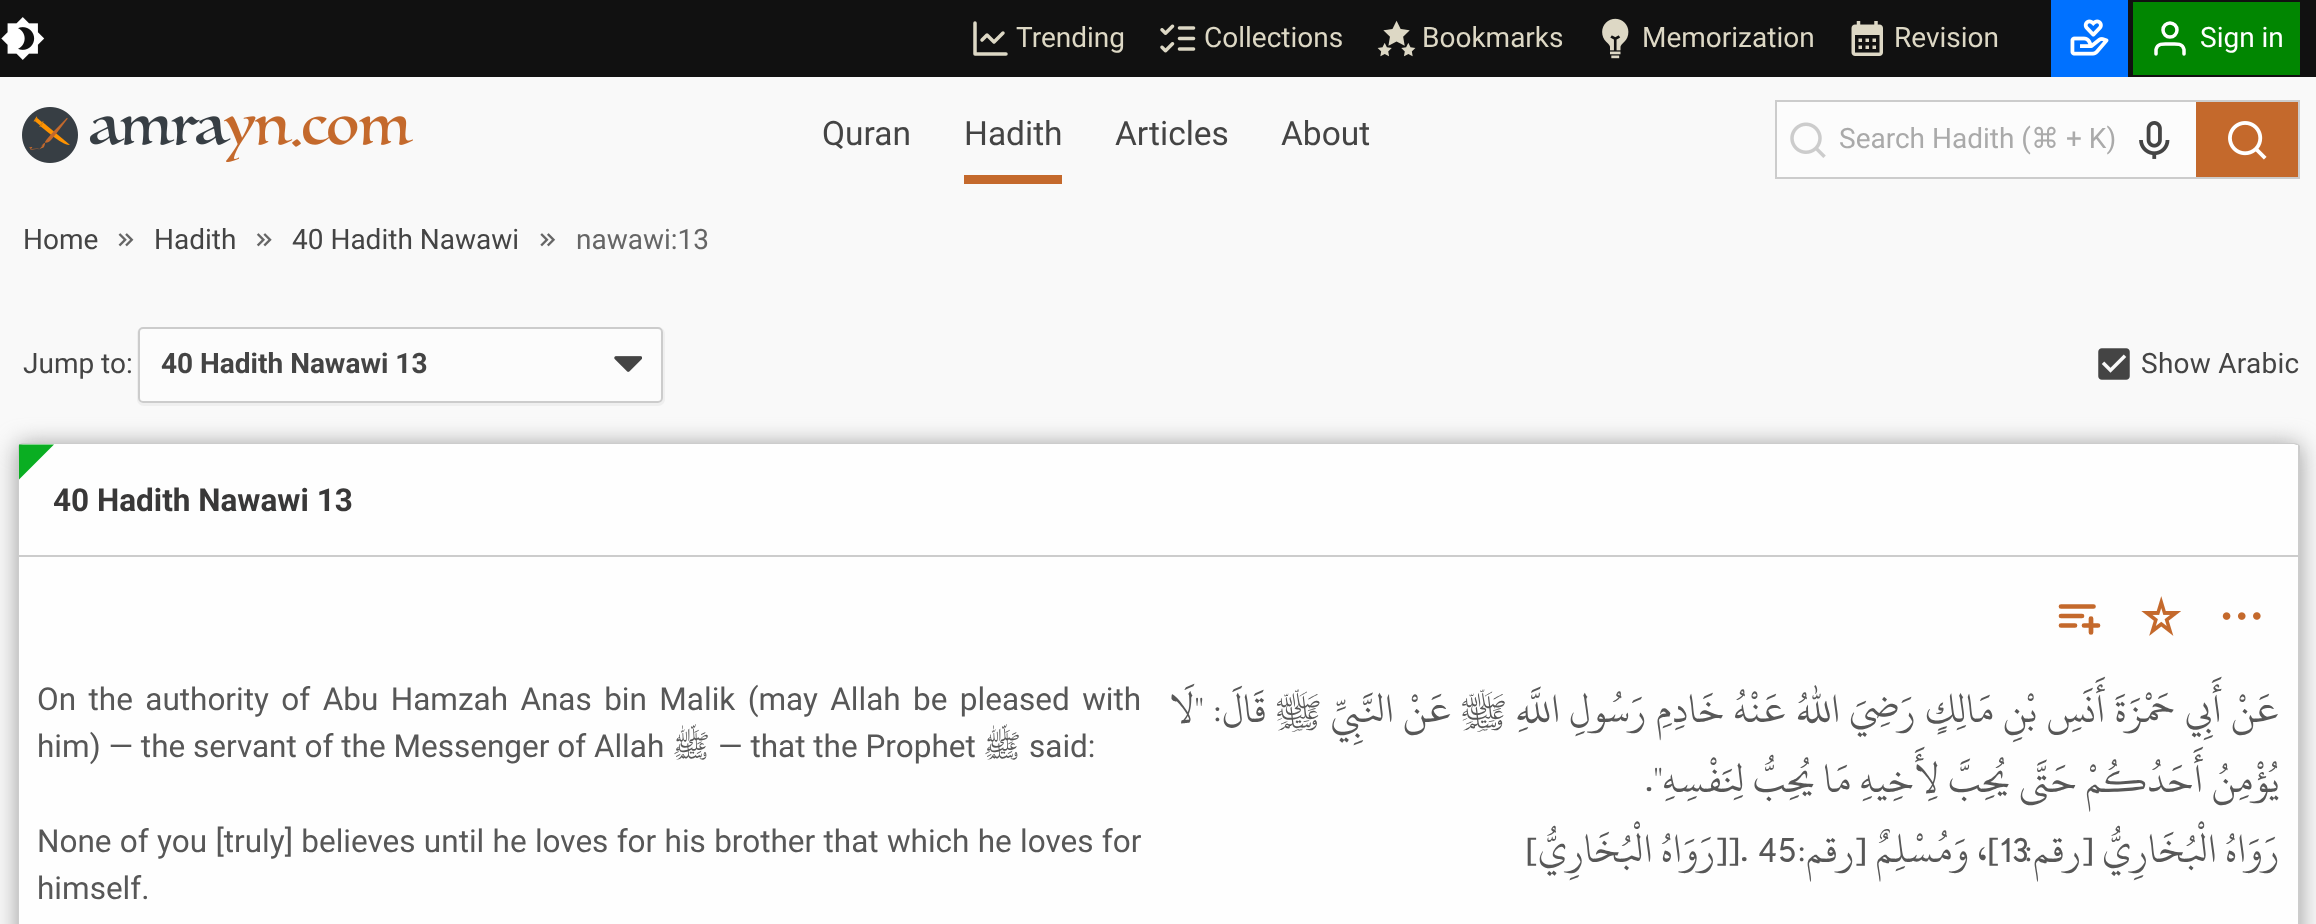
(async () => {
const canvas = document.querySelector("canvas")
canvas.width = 2316
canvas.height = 924
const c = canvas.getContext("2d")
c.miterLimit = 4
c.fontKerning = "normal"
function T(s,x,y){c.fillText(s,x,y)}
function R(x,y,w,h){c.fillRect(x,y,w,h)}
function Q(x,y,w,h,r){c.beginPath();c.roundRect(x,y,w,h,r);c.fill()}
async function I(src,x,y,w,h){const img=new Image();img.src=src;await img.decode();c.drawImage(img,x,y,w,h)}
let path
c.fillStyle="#f9f9f9"
R(0,0,2316,924)
c.fillStyle="#111"
R(0,0,2316,77)
await I("1.png",1,17,44,43)
path = new Path2D("M975 23v31h31m-3-21l-9 9l-7-7l-5 5")
c.strokeStyle="#ddd8c5"
c.lineWidth=3.5
c.lineCap="round"
c.lineJoin="round"
c.stroke(path)
c.font="28px Roboto"
c.fillStyle="#ddd8c5"
T("Trending",1016,47)
await I("2.png",1160,24,36,29)
T("Collections",1204,47)
await I("3.png",1377,20,39,37)
T("Bookmarks",1422,47)
await I("4.png",1602,18,27,41)
T("Memorization",1642,47)
await I("5.png",1851,21,32,35)
T("Revision",1894,47)
c.fillStyle="#0071ff"
R(2051,0,77,77)
await I("6.png",2070,19,39,37)
c.fillStyle="#018601"
R(2133,2,167,73)
path = new Path2D("M2184 54v-4.5c-1.5-7-9-5.5-14-5.5c-5 0-12.5-1.5-14 5.5v4.5")
c.strokeStyle="#fff"
c.stroke(path)
c.beginPath()
c.arc(2170,30,7,0,7)
c.stroke()
c.fillStyle="#fff"
T("Sign in",2200,47)
await I("7.png",22,107,391,56)
c.font="33.5px Roboto"
c.fillStyle="#444"
T("Quran",822,145)
T("Hadith",964,145)
c.fillStyle="#c4692c"
R(964,175,98,9)
c.fillStyle="#444"
T("Articles",1115,145)
T("About",1281,145)
c.fillStyle="#fcfcfc"
R(1777,102,419,75)
c.strokeStyle="#ccc"
c.lineWidth=2
c.lineJoin="miter"
c.strokeRect(1776,101,523,77)
await I("8.png",1790,122,36,36)
c.font="28px Roboto"
c.fillStyle="#aaa"
T("Search Hadith (",1839,148)
c.font="28px DejaVu Sans"
T("⌘",2031,148)
c.font="28px Roboto"
T("+ K)",2066,148)
await I("9.png",2139,121,31,38)
c.fillStyle="#c4692c"
R(2196,102,102,75)
await I("10.png",2228,121,39,39)
c.fillStyle="#444"
T("Home",23,249)
await I("11.png",118,233,16,14)
T("Hadith",154,249)
await I("12.png",256,233,16,14)
T("40 Hadith Nawawi",292,249)
await I("13.png",540,233,16,14)
c.fillStyle="#666"
T("nawawi:13",576,249)
c.fillStyle="#444"
T("Jump to:",23,373)
c.fillStyle="#efefef"
path = new Path2D("M144 327c-4 0-7 3-7 7v65c0 4 3 7 7 7h514c4 0 7-3 7-7v-65c0-4-3-7-7-7zm0 0c-3 0-6 3-6 5v65c0 3 3 5 6 5h514c3 0 5-2 5-5v-65c0-2-2-5-5-5z")
c.fill(path,"evenodd")
c.fillStyle="#fcfcfc"
Q(138,327,525,76,5)
await I("14.png",614,356,28,16)
c.beginPath()
c.roundRect(139,328,523,74,4)
c.stroke()
c.font="bold 28px Roboto"
c.fillStyle="#444"
T("40 Hadith Nawawi 13",161,373)
await I("15.png",2098,348,32,32)
c.letterSpacing="0.25px"
c.font="28px 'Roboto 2'"
T("Show Arabic",2141,373)
c.fillStyle="#999"
c.filter="blur(11.5px)"
c.beginPath()
c.roundRect(18,445,2282,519,5)
c.fill()
c.filter="none"
c.fillStyle="#fefefe"
path = new Path2D("M23 444h2271c2 0 4 2 4 4v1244h-2279v-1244c0-2 2-4 4-4z")
c.fill(path)
c.fillStyle="#ccc"
path = new Path2D("M23 443c-2 0-3 1-4 2h1l3-1h2271l3 1l1-1l-4-1z")
c.fill(path)
path = new Path2D("M2298 444l2 2v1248l-1 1l-1-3v-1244l-1-3z")
c.fill(path)
path = new Path2D("M19 445c-1 0-1 2-1 3v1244v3l1-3v-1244l1-3z")
c.fill(path)
c.fillStyle="#fefefe"
R(19,445,2279,3)
c.fillStyle="#ccc"
R(19,555,2279,2)
c.fillStyle="#0aae22"
path = new Path2D("M19 444.5h35l-35 35z")
c.fill(path)
c.letterSpacing="0px"
c.font="bold 31.5px Roboto"
c.fillStyle="#393838"
T("40 Hadith Nawawi 13",53,511)
path = new Path2D("M2093.5 606.5h-32.5m0 9.5h21m-7 9.5h-14m23 0h14m-7-7v14")
c.strokeStyle="#c4692c"
c.lineWidth=4.7
c.lineJoin="round"
c.stroke(path)
await I("16.png",2141,596,40,40)
await I("17.png",2222,612,39,8)
c.wordSpacing="4.6px"
c.font="31.5px Roboto"
c.fillStyle="#575757"
T("On the authority of Abu Hamzah Anas bin Malik (may Allah be pleased with",37,710)
c.wordSpacing="0px"
T("him) — the servant of the Messenger of Allah",37,757)
c.direction="rtl"
c.font="31.5px Lateef"
T("ﷺ",710,757)
c.direction="ltr"
c.font="31.5px Roboto"
T("— that the Prophet",718,757)
c.direction="rtl"
c.font="31.5px Lateef"
T("ﷺ",1021,757)
c.direction="ltr"
c.font="31.5px Roboto"
T("said:",1029,757)
c.wordSpacing="0.5px"
T("None of you [truly] believes until he loves for his brother that which he loves for",37,852)
c.wordSpacing="0px"
T("himself.",37,899)
c.wordSpacing="0.6px"
c.direction="rtl"
c.font="43.75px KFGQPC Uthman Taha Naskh"
T("عَنْ أَبِي حَمْزَةَ أَنَسِ بْنِ مَالِكٍ رَضِيَ اللهُ عَنْهُ خَادِمِ رَسُولِ اللَّهِ ﷺ عَنْ النَّبِيِّ ﷺ قَالَ: \"لَا",2280,722)
c.wordSpacing="0px"
T("يُؤْمِنُ أَحَدُكُمْ حَتَّى يُحِبَّ لِأَخِيهِ مَا يُحِبُّ لِنَفْسِهِ\".",2280,792)
T("[رَوَاهُ الْبُخَارِيُّ]",1728,862)
c.direction="ltr"
T("]. 45",1728,862)
c.direction="rtl"
T("]، وَمُسْلِمٌ [رقم:",2000,862)
c.direction="ltr"
T("13",2000,862)
c.direction="rtl"
T("رَوَاهُ الْبُخَارِيُّ [رقم:",2280,862)
})()
